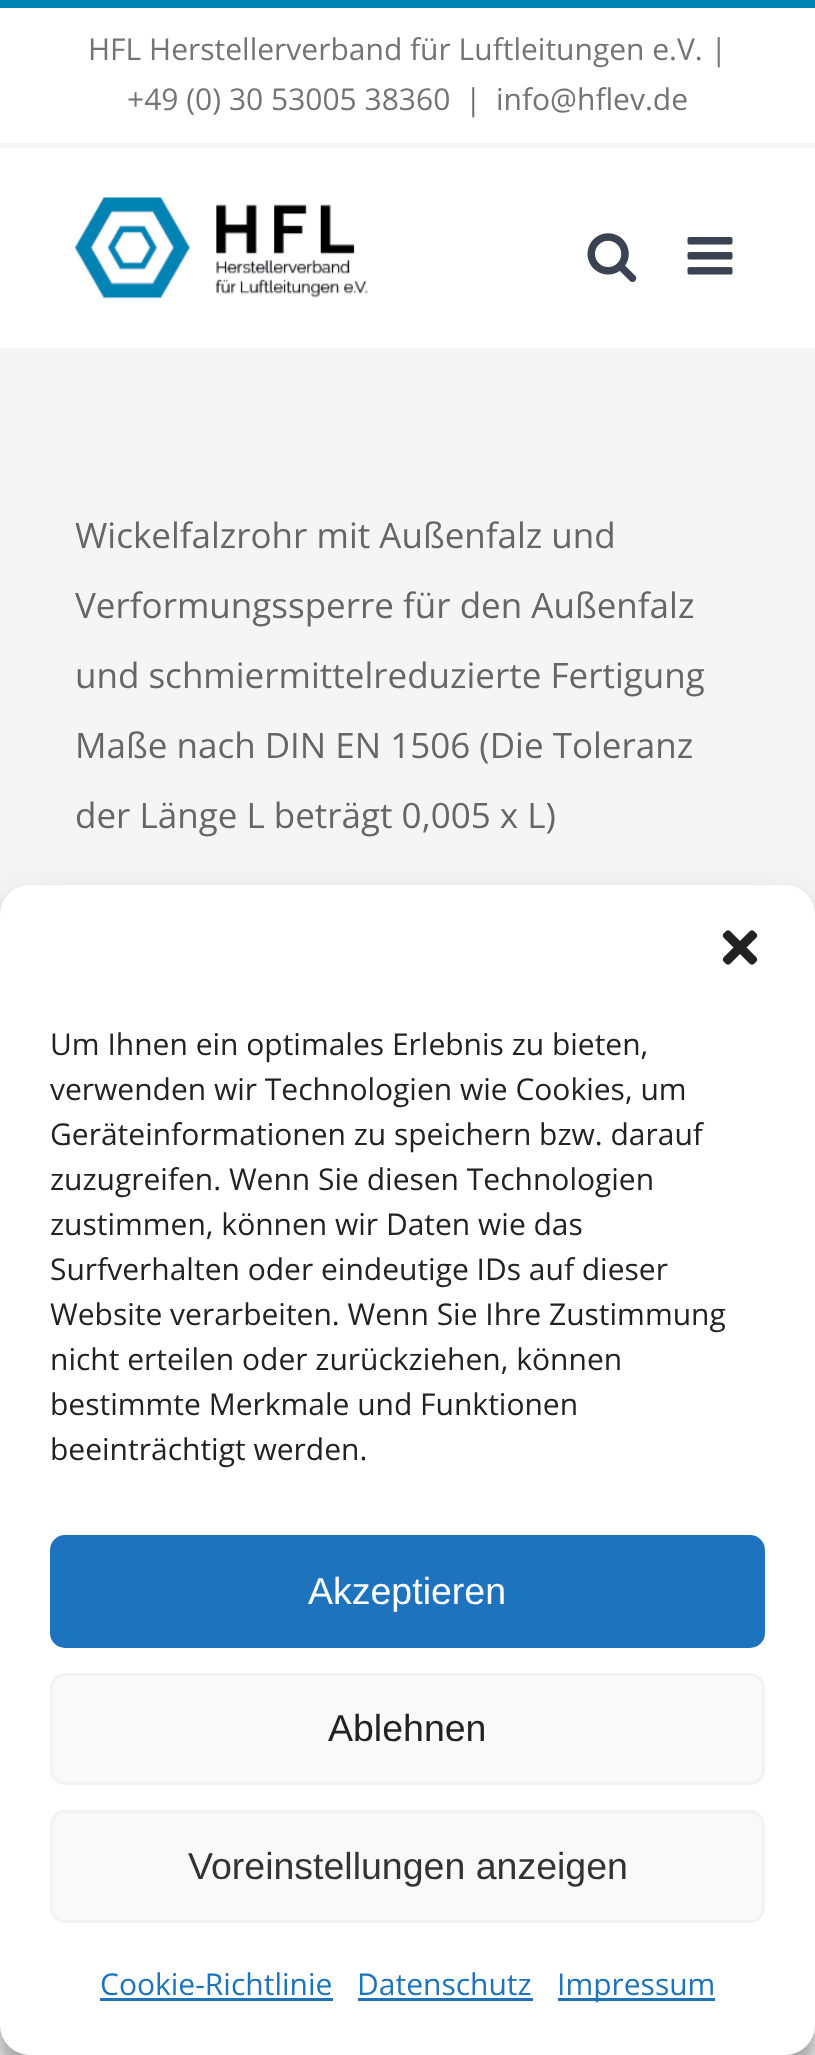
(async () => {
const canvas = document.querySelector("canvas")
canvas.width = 815
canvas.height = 2055
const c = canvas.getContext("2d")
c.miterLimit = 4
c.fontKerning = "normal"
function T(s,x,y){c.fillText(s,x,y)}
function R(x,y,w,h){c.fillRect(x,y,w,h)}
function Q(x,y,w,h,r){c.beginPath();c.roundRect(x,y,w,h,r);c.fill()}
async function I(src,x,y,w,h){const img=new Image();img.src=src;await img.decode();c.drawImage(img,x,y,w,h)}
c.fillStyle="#f5f5f5"
R(0,0,815,2055)
c.fillStyle="#fff"
R(0,8,815,135)
c.fillStyle="#0084b4"
R(0,0,815,8)
c.font="30px Open Sans"
c.fillStyle="#747474"
T("HFL Herstellerverband für Luftleitungen e.V. |",88,60)
T("+49 (0) 30 53005 38360",127,110)
T("|",465,110)
T("info@hflev.de",496,110)
c.fillStyle="#fff"
R(0,148,815,200)
await I("1.png",75,197,293,102)
await I("2.png",587,233,50,49)
await I("3.png",687,237,46,38)
c.font="35px Open Sans"
c.fillStyle="#666"
T("Wickelfalzrohr mit Außenfalz und",75,548)
T("Verformungssperre für den Außenfalz",75,618)
T("und schmiermittelreduzierte Fertigung",75,688)
T("Maße nach DIN EN 1506 (Die Toleranz",75,758)
T("der Länge L beträgt 0,005 x L)",75,828)
c.fillStyle="#0000003b"
c.filter="blur(7.5px)"
c.beginPath()
c.roundRect(0,900,815,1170,30)
c.fill()
c.filter="none"
c.fillStyle="#00000030"
c.filter="blur(25px)"
c.beginPath()
c.roundRect(0,910,815,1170,30)
c.fill()
c.filter="none"
c.fillStyle="#fff"
Q(0,885,815,1170,30)
await I("4.png",722,930,36,35)
c.font="30px Open Sans"
c.fillStyle="#222"
T("Um Ihnen ein optimales Erlebnis zu bieten,",50,1055)
T("verwenden wir Technologien wie Cookies, um",50,1100)
T("Geräteinformationen zu speichern bzw. darauf",50,1145)
T("zuzugreifen. Wenn Sie diesen Technologien",50,1190)
T("zustimmen, können wir Daten wie das",50,1235)
T("Surfverhalten oder eindeutige IDs auf dieser",50,1280)
T("Website verarbeiten. Wenn Sie Ihre Zustimmung",50,1325)
T("nicht erteilen oder zurückziehen, können",50,1370)
T("bestimmte Merkmale und Funktionen",50,1415)
T("beeinträchtigt werden.",50,1460)
c.fillStyle="#1e73be"
c.beginPath()
c.roundRect(51.5,1536.5,712,110,13.5)
c.fill()
c.strokeStyle="#1e73be"
c.lineWidth=3
c.stroke()
c.font="37.5px Liberation Sans"
c.fillStyle="#fff"
T("Akzeptieren",308,1604)
c.fillStyle="#f9f9f9"
c.beginPath()
c.roundRect(51.5,1674.5,712,109,13.5)
c.fill()
c.strokeStyle="#f2f2f2"
c.stroke()
c.fillStyle="#222"
T("Ablehnen",328,1741)
c.fillStyle="#f9f9f9"
c.beginPath()
c.roundRect(51.5,1811.5,712,110,13.5)
c.fill()
c.stroke()
c.fillStyle="#333"
T("Voreinstellungen anzeigen",188,1879)
c.font="30px Open Sans"
c.fillStyle="#1e73be"
T("Cookie-Richtlinie",100,1995)
R(100,1998,233,3)
T("Datenschutz",357,1995)
R(358,1998,175,3)
R(558,1998,157,3)
T("Impressum",557,1995)
})()
